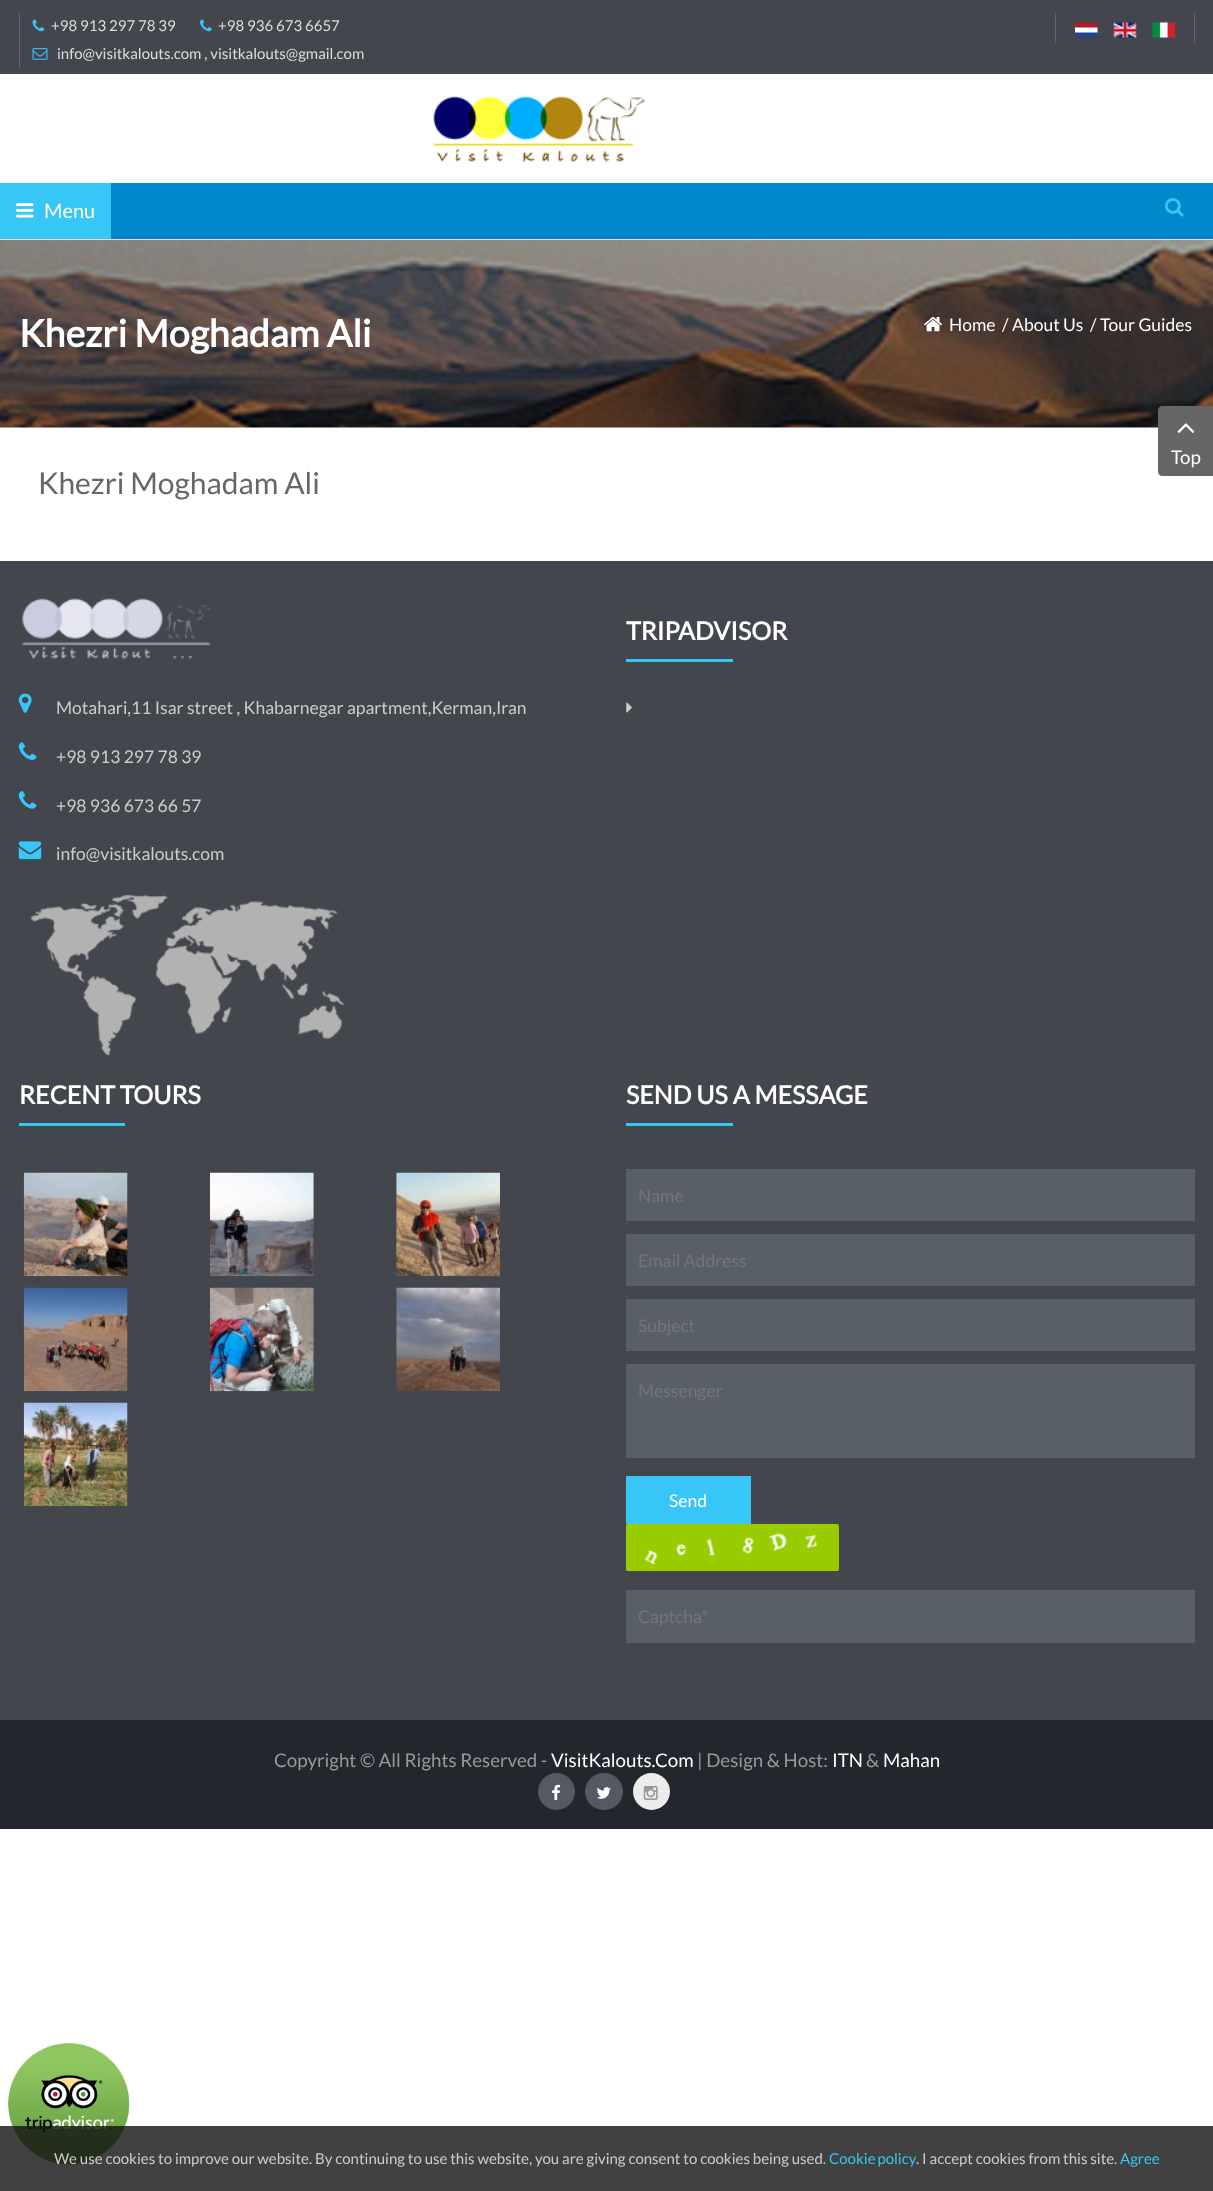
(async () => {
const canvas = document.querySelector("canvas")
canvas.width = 1213
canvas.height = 2191
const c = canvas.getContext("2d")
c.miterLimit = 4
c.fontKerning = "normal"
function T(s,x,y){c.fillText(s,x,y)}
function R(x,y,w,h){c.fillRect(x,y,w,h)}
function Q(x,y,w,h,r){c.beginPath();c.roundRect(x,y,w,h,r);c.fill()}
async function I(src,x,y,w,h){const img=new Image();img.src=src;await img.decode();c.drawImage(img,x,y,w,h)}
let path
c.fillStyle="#fff"
R(0,0,1213,2191)
c.fillStyle="#43474d"
R(0,0,1213,74)
c.fillStyle="#666"
R(19,13,1,55)
await I("1.png",32,19,13,13)
c.font="15px Lato"
c.fillStyle="#ddd"
T("+98 913 297 78 39",51,31)
await I("2.png",200,19,12,13)
T("+98 936 673 6657",218,31)
await I("3.png",32,48,16,12)
T("info@visitkalouts.com , visitkalouts@gmail.com",57,59)
c.fillStyle="#666"
R(1194,13,1,30)
R(1055,13,1,30)
await I("4.png",1075,22,23,16)
await I("5.png",1113,22,24,16)
await I("6.png",1152,22,23,16)
c.fillStyle="#ddd"
R(0,239,1213,1)
await I("7.png",433,96,213,67)
c.fillStyle="#08c"
R(111,183,1102,56)
c.fillStyle="#37c6f5"
R(0,183,111,56)
await I("8.png",16,203,18,15)
c.font="20px Lato"
c.fillStyle="#fff"
T("Menu",44,218)
await I("9.png",1165,198,19,19)
await I("10.png",0,240,1213,188)
c.font="bold 37.5px Lato"
T("Khezri Moghadam Ali",19,347)
await I("11.png",924,316,18,16)
c.font="17.5px Lato"
T("Home",949,331)
T("/",1002,331)
T("About Us",1012,331)
T("/",1090,331)
T("Tour Guides",1100,331)
c.fillStyle="#666"
path = new Path2D("M1162 406h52v70h-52c-2 0-4-2-4-4v-62c0-2 2-4 4-4z")
c.fill(path)
await I("12.png",1177,423,18,10)
c.font="18.75px Lato"
c.fillStyle="#fff"
T("Top",1171,464)
c.font="30px Lato"
c.fillStyle="#666"
T("Khezri Moghadam Ali",38,494)
c.fillStyle="#43474d"
R(0,561,1213,1159)
c.font="bold 25px Lato"
c.fillStyle="#fff"
T("TRIPADVISOR",626,640)
c.fillStyle="#37c6f5"
R(626,659,107,3)
await I("13.png",626,702,6,11)
await I("14.png",22,598,322,458)
await I("15.png",18,693,14,20)
c.font="17.5px Lato"
c.fillStyle="#ccc"
T("Motahari,11 Isar street , Khabarnegar apartment,Kerman,Iran",56,714)
await I("16.png",18,742,19,18)
T("+98 913 297 78 39",56,763)
await I("17.png",18,791,19,18)
T("+98 936 673 66 57",56,812)
await I("18.png",18,841,24,19)
T("info@visitkalouts.com",56,860)
c.font="bold 25px Lato"
c.fillStyle="#fff"
T("RECENT TOURS",19,1104)
c.fillStyle="#37c6f5"
R(19,1123,106,3)
await I("19.png",23,1172,105,105)
await I("20.png",210,1172,104,105)
await I("21.png",396,1172,104,105)
await I("22.png",23,1287,105,105)
await I("23.png",210,1287,104,105)
await I("24.png",396,1287,104,104)
await I("25.png",23,1402,105,105)
c.fillStyle="#fff"
T("SEND US A MESSAGE",626,1104)
c.fillStyle="#37c6f5"
R(626,1123,107,3)
c.fillStyle="#595f67"
R(626,1169,569,52)
c.font="17.5px Lato"
c.fillStyle="#757575"
T("Name",638,1202)
c.fillStyle="#595f67"
R(626,1234,569,52)
c.fillStyle="#757575"
T("Email Address",638,1267)
c.fillStyle="#595f67"
R(626,1299,569,52)
c.fillStyle="#757575"
T("Subject",638,1332)
c.fillStyle="#595f67"
R(626,1364,569,94)
c.fillStyle="#757575"
T("Messenger",638,1397)
c.fillStyle="#9c0"
Q(626,1524,213,47,2.5)
await I("26.png",626,1523,213,49)
c.fillStyle="#37c6f5"
R(626,1476,125,48)
c.fillStyle="#fff"
T("Send",669,1507)
c.fillStyle="#595f67"
R(626,1590,569,53)
c.fillStyle="#757575"
T("Captcha*",638,1623)
c.fillStyle="#23262d"
R(0,1720,1213,109)
c.font="18.75px Lato"
c.fillStyle="#999"
T("Copyright © All Rights Reserved -",274,1767)
c.fillStyle="#fff"
T("VisitKalouts.Com",551,1767)
c.fillStyle="#999"
T("| Design & Host:",697,1767)
c.fillStyle="#fff"
T("ITN",832,1767)
c.fillStyle="#999"
T("&",866,1767)
c.fillStyle="#fff"
T("Mahan",883,1767)
c.fillStyle="#555a62"
c.beginPath()
c.arc(556.5,1791.5,18.5,0,7)
c.fill()
await I("27.png",552,1784,8,16)
Q(585,1773,38,37,18.5)
await I("28.png",597,1787,14,12)
c.fillStyle="#ececec"
c.beginPath()
c.arc(651.5,1791.5,18.5,0,7)
c.fill()
await I("29.png",643,1786,15,14)
await I("30.png",8,2043,122,122)
c.fillStyle="#121212cc"
R(0,2126,1213,65)
c.font="15px Lato"
c.fillStyle="#ccc"
T("We use cookies to improve our website. By continuing to use this website, you are giving consent to cookies being used.",54,2164)
c.wordSpacing="-1px"
c.fillStyle="#37c6f5"
T("Cookie policy",829,2164)
c.wordSpacing="0px"
c.fillStyle="#ccc"
T(". I accept cookies from this site.",916,2164)
c.fillStyle="#37c6f5"
T("Agree",1120,2164)
})()
